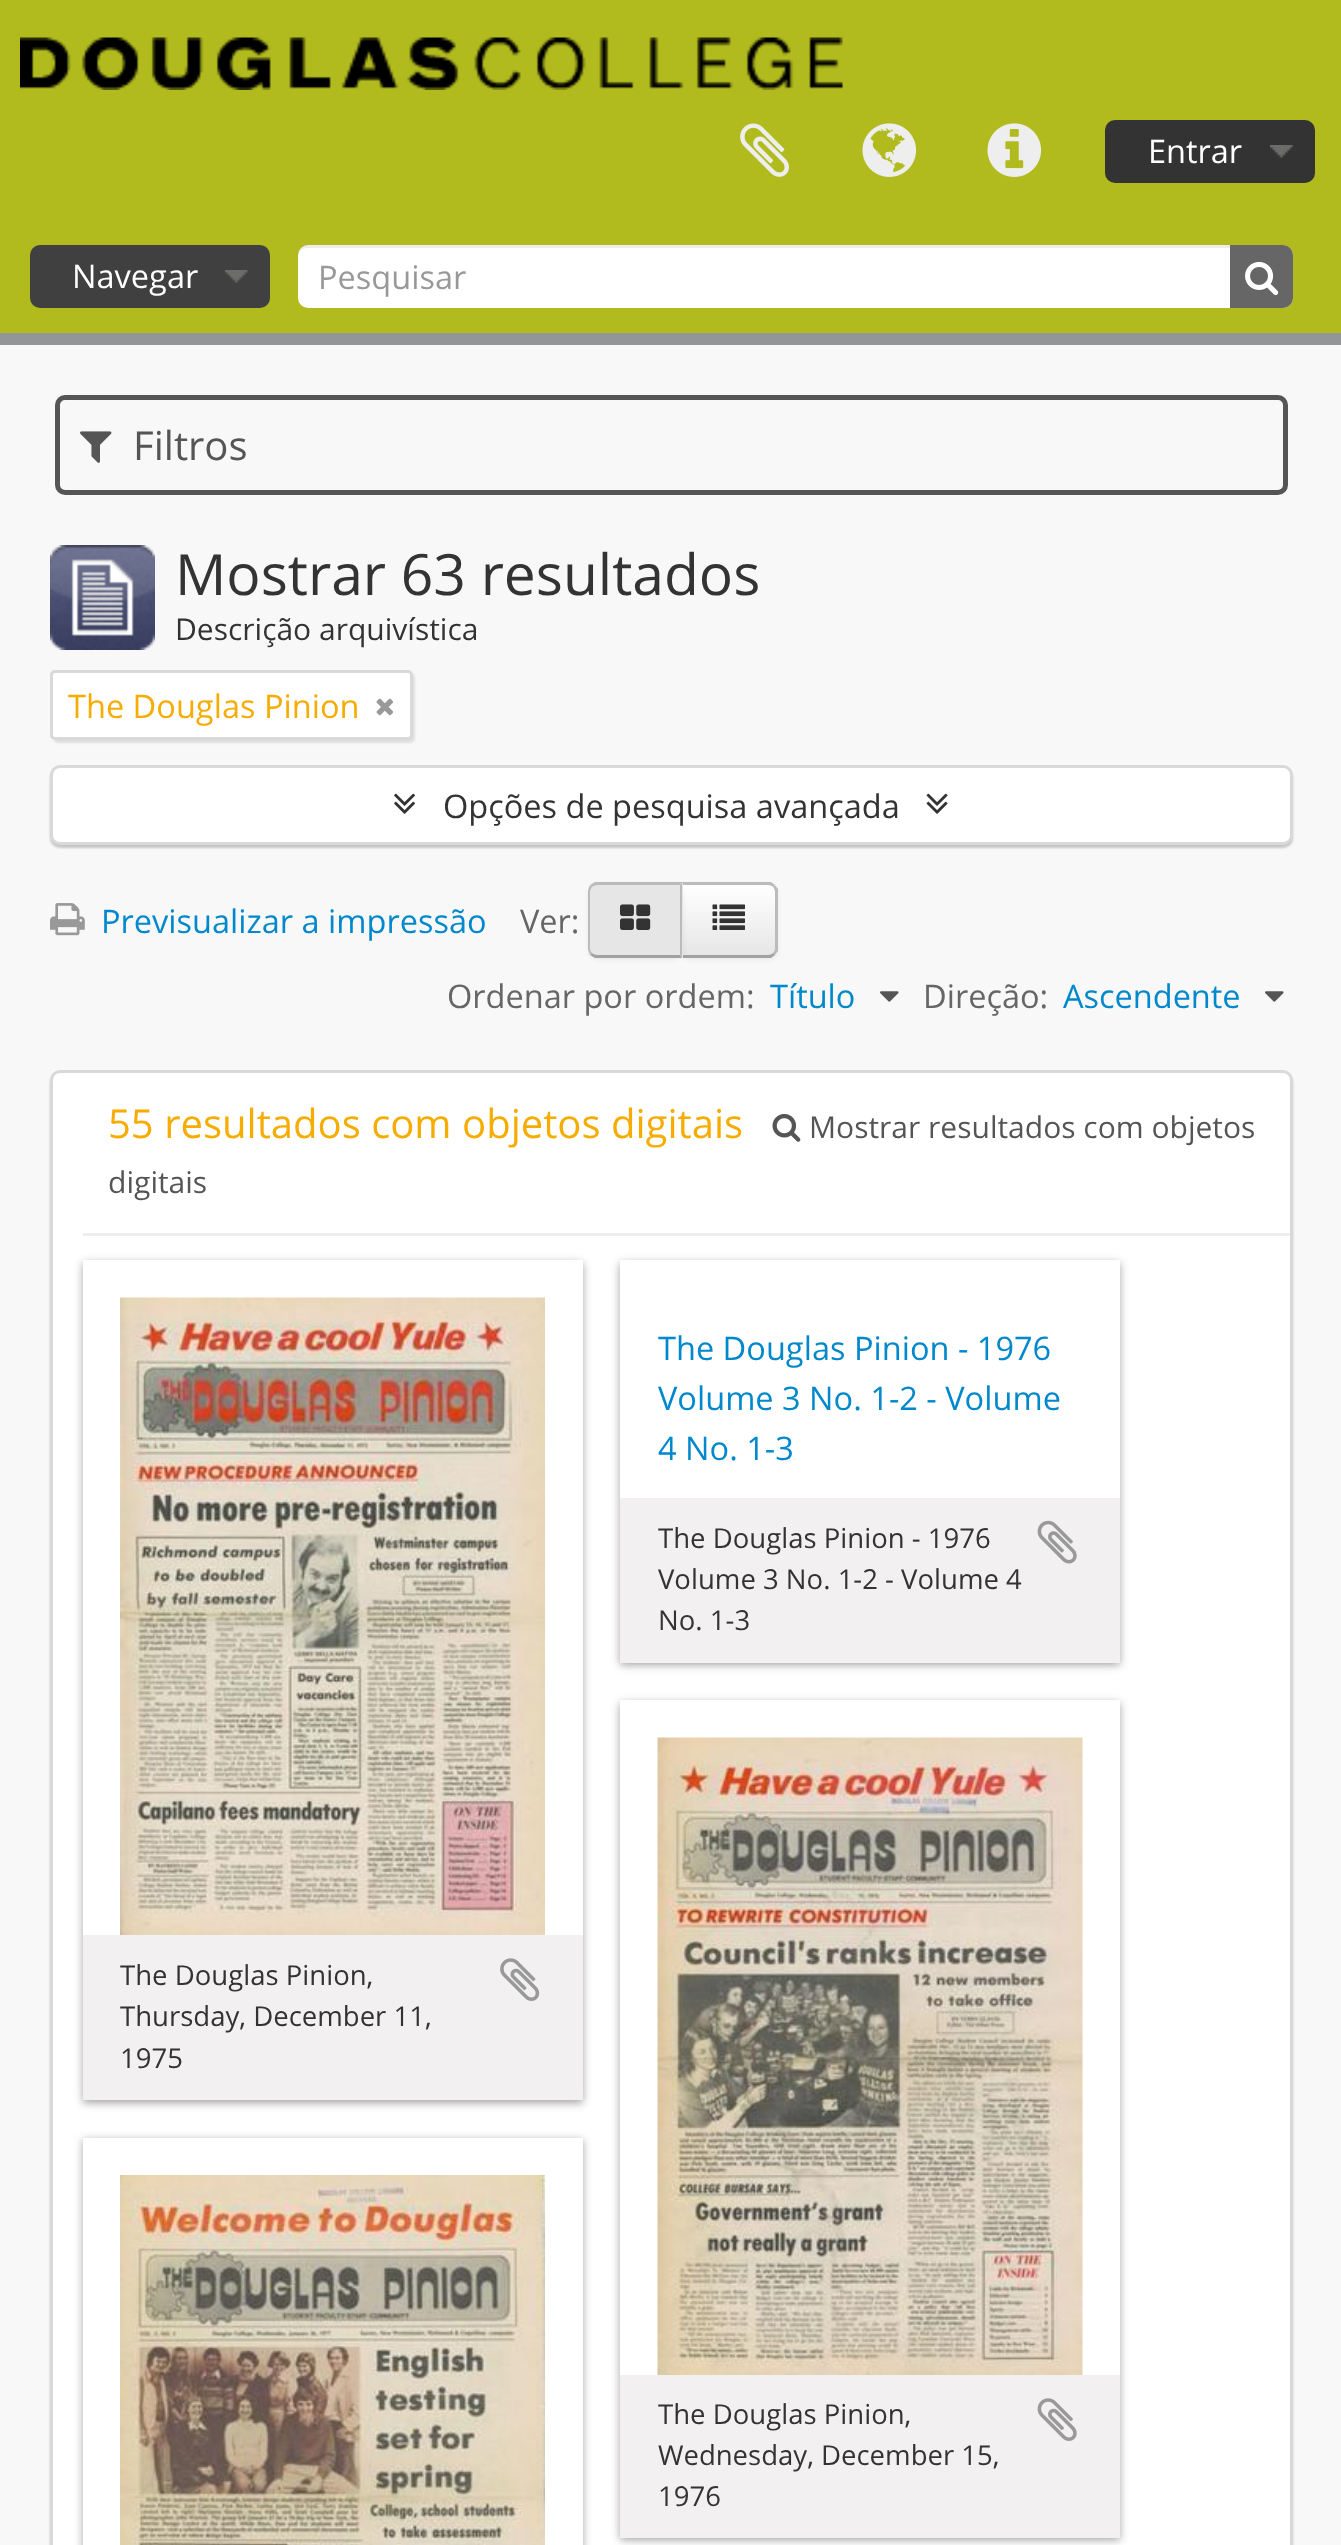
(async () => {
const canvas = document.querySelector("canvas")
canvas.width = 1341
canvas.height = 2545
const c = canvas.getContext("2d")
c.miterLimit = 4
c.fontKerning = "normal"
function T(s,x,y){c.fillText(s,x,y)}
function R(x,y,w,h){c.fillRect(x,y,w,h)}
function Q(x,y,w,h,r){c.beginPath();c.roundRect(x,y,w,h,r);c.fill()}
async function I(src,x,y,w,h){const img=new Image();img.src=src;await img.decode();c.drawImage(img,x,y,w,h)}
let gradient, path
c.fillStyle="#f8f8f8"
R(0,0,1341,2545)
c.fillStyle="#b2bb1e"
R(0,0,1341,333)
await I("1.png",20,37,823,53)
await I("2.png",740,123,49,54)
await I("3.png",862,123,55,54)
await I("4.png",987,123,55,54)
c.fillStyle="#333"
Q(1105,120,210,63,10)
await I("5.png",1270,145,24,13)
c.font="32.5px Open Sans"
c.fillStyle="#fff"
T("Entrar",1148,163)
c.fillStyle="#404040"
Q(30,245,240,63,10)
await I("6.png",225,270,24,13)
c.fillStyle="#fff"
T("Navegar",72,288)
Q(298,245,995,63,10)
c.fillStyle="#00000012"
path = new Path2D("M308 248h974c6 0 10 4 10 10v42v3c0-1 1-3 1-5v-43c0-6-4-10-10-10h-975c-6 0-10 4-10 10v3c0-6 4-10 10-10z")
c.fill(path)
c.fillStyle="#999"
T("Pesquisar",318,289)
c.fillStyle="#666"
c.beginPath()
c.roundRect(1230,245,63,63,[0,10,10,0])
c.fill()
await I("7.png",1245,261,34,35)
c.fillStyle="#939598"
R(0,333,1341,12)
c.beginPath()
c.roundRect(57.5,397.5,1228,95,7.5)
c.strokeStyle="#555"
c.lineWidth=5
c.stroke()
await I("8.png",80,431,32,32)
c.font="40px Open Sans"
c.fillStyle="#555"
T("Filtros",133,460)
await I("9.png",50,545,105,105)
c.font="56.9px Open Sans"
c.fillStyle="#333"
T("Mostrar 63 resultados",175,595)
c.font="30px Open Sans"
T("Descrição arquivística",175,640)
c.fillStyle="#0000001a"
c.filter="blur(1px)"
c.beginPath()
c.roundRect(53,673,362,70,5)
c.fill()
c.filter="none"
c.fillStyle="#fff"
c.beginPath()
c.roundRect(51.5,671.5,360,67,3.5)
c.fill()
c.strokeStyle="#d9d9d9"
c.lineWidth=3
c.stroke()
c.font="32.5px Open Sans"
c.fillStyle="#f6ac00"
T("The Douglas Pinion",68,718)
await I("10.png",376,698,17,18)
c.fillStyle="#00000033"
c.filter="blur(1px)"
c.beginPath()
c.roundRect(50,768,1243,80,10)
c.fill()
c.filter="none"
c.fillStyle="#fff"
c.beginPath()
c.roundRect(51.5,766.5,1240,77,8.5)
c.fill()
c.stroke()
await I("11.png",394,793,21,21)
c.fillStyle="#333"
T("Opções de pesquisa avançada",443,818)
await I("12.png",926,793,22,21)
await I("13.png",50,903,35,33)
c.fillStyle="#08c"
T("Previsualizar a impressão",101,933)
c.fillStyle="#666"
T("Ver:",520,933)
c.fillStyle="#0000000d"
c.filter="blur(2.5px)"
c.beginPath()
c.roundRect(680,885,98,75,10)
c.fill()
c.filter="none"
c.fillStyle="#f5f5f5"
c.beginPath()
c.roundRect(680,883,98,75,[0,10,10,0])
c.fill()
c.save()
c.beginPath()
c.roundRect(680,883,98,75,[0,10,10,0])
c.clip()
gradient = c.createLinearGradient(729,885,729,955)
gradient.addColorStop(0,"#fff")
gradient.addColorStop(1,"#e6e6e6")
c.fillStyle = gradient
R(683,885,95,70)
c.restore()
c.fillStyle="#bbb"
path = new Path2D("M680 882h91l4 3l-2 2c-1-1-3-2-5-2h-86z")
c.fill(path)
path = new Path2D("M778 951l-3 4l-2-2c1-1 2-3 2-5v-56c0-2-1-4-2-5l2-2l3 4z")
c.fill(path)
c.fillStyle="#a2a2a2"
path = new Path2D("M771 958h-91l2-3h86c2 0 4-1 5-2l2 2z")
c.fill(path)
c.fillStyle="#0000000d"
c.filter="blur(2.5px)"
c.beginPath()
c.roundRect(588,885,95,75,10)
c.fill()
c.filter="none"
c.fillStyle="#e6e6e6"
c.beginPath()
c.roundRect(588,883,95,75,[10,0,0,10])
c.fill()
c.fillStyle="#bbb"
path = new Path2D("M598 885c-3 0-5 1-6 2l-2-2c2-1 3-2 5-3h87l-2 3z")
c.fill(path)
path = new Path2D("M682 883v74l-2-2v-70z")
c.fill(path)
c.fillStyle="#a2a2a2"
path = new Path2D("M595 958c-2-1-3-2-5-3l2-2c1 1 3 2 6 2h82l2 3z")
c.fill(path)
c.fillStyle="#bbb"
path = new Path2D("M590 955c-1-2-2-5-2-7v-56c0-2 1-5 2-7l2 2c-1 1-2 3-2 5v56c0 2 1 4 2 5z")
c.fill(path)
await I("14.png",620,904,31,26)
await I("15.png",712,904,33,26)
c.fillStyle="#666"
T("Ordenar por ordem:",447,1008)
c.fillStyle="#08c"
T("Título",770,1008)
await I("16.png",880,991,19,11)
c.fillStyle="#666"
T("Direção:",923,1008)
c.fillStyle="#08c"
T("Ascendente",1063,1008)
await I("16.png",1265,991,19,11)
c.fillStyle="#00000033"
c.filter="blur(1px)"
c.beginPath()
c.roundRect(50,1073,1243,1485,10)
c.fill()
c.filter="none"
c.fillStyle="#fff"
c.beginPath()
c.roundRect(51.5,1071.5,1240,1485,8.5)
c.fill()
c.stroke()
c.fillStyle="#eee"
R(83,1233,1207,3)
c.font="40px Open Sans"
c.fillStyle="#f6ac00"
T("55 resultados com objetos digitais",108,1138)
await I("17.png",772,1113,29,29)
c.font="30px Open Sans"
c.fillStyle="#555"
T("Mostrar resultados com objetos",809,1138)
T("digitais",108,1193)
c.fillStyle="#19191966"
c.filter="blur(4px)"
c.beginPath()
c.rect(620,1263,500,402)
c.fill()
c.filter="none"
c.fillStyle="#fff"
R(620,1260,500,238)
c.font="32.5px Open Sans"
c.fillStyle="#08c"
T("The Douglas Pinion - 1976",658,1360)
T("Volume 3 No. 1-2 - Volume",658,1410)
T("4 No. 1-3",658,1460)
c.fillStyle="#f2f0f0"
R(620,1498,500,165)
c.font="27.5px Open Sans"
c.fillStyle="#333"
T("The Douglas Pinion - 1976",658,1548)
await I("18.png",1037,1520,40,44)
T("Volume 3 No. 1-2 - Volume 4",658,1589)
T("No. 1-3",658,1630)
c.fillStyle="#19191966"
c.filter="blur(4px)"
c.beginPath()
c.rect(83,1263,500,840)
c.fill()
c.filter="none"
c.fillStyle="#fff"
R(83,1260,500,675)
await I("19.png",120,1297,425,638)
c.fillStyle="#f2f0f0"
R(83,1935,500,165)
c.fillStyle="#333"
T("The Douglas Pinion,",120,1985)
await I("20.png",500,1958,40,43)
T("Thursday, December 11,",120,2026)
T("1975",120,2068)
c.fillStyle="#19191966"
c.filter="blur(4px)"
c.beginPath()
c.rect(83,2140,500,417)
c.fill()
c.filter="none"
c.fillStyle="#fff"
R(83,2138,500,407)
await I("21.png",120,2175,425,370)
c.fillStyle="#19191966"
c.filter="blur(4px)"
c.beginPath()
c.rect(620,1703,500,837)
c.fill()
c.filter="none"
c.fillStyle="#fff"
R(620,1700,500,675)
await I("22.png",657,1737,426,638)
c.fillStyle="#f2f0f0"
R(620,2375,500,163)
c.fillStyle="#333"
T("The Douglas Pinion,",658,2424)
await I("23.png",1037,2398,40,43)
T("Wednesday, December 15,",658,2465)
T("1976",658,2506)
})()
